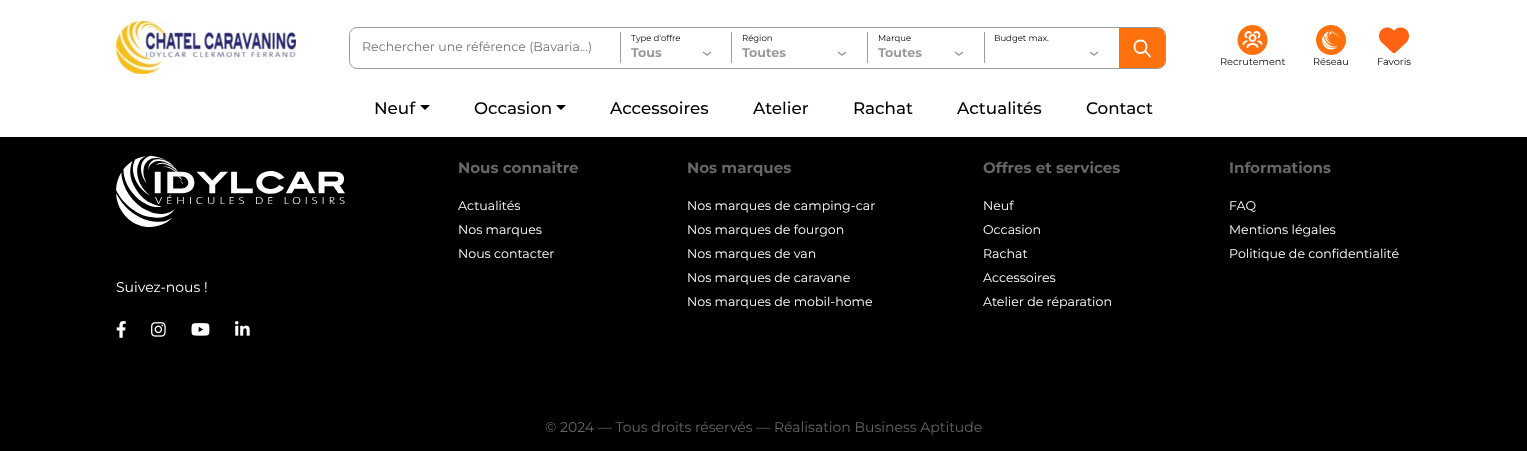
(async () => {
const canvas = document.querySelector("canvas")
canvas.width = 1527
canvas.height = 451
const c = canvas.getContext("2d")
c.miterLimit = 4
c.fontKerning = "normal"
function T(s,x,y){c.fillText(s,x,y)}
function R(x,y,w,h){c.fillRect(x,y,w,h)}
async function I(src,x,y,w,h){const img=new Image();img.src=src;await img.decode();c.drawImage(img,x,y,w,h)}
let path
c.fillStyle="#000"
R(0,0,1527,451)
c.fillStyle="#fff"
R(0,0,1527,137)
await I("1.png",115,21,181,53)
c.beginPath()
c.roundRect(349.5,27.5,816,41,7.5)
c.strokeStyle="#9b9b9b"
c.stroke()
c.save()
c.beginPath()
c.roundRect(350,28,815,40,7)
c.clip()
R(350,32,270,31)
c.restore()
c.font="12.6px Montserrat"
c.fillStyle="#757575"
T("Rechercher une référence (Bavaria...)",362,51)
c.fillStyle="#9b9b9b"
R(620,32,1,31)
c.font="8.5px Montserrat"
c.fillStyle="#000"
T("Type d'offre",631,41)
path = new Path2D("M703 52l4 3l4-3")
c.lineWidth=1.5
c.stroke(path)
c.font="bold 12.6px Montserrat"
c.fillStyle="#9b9b9b"
T("Tous",631,57)
R(731,32,1,31)
c.font="8.5px Montserrat"
c.fillStyle="#000"
T("Région",742,41)
path = new Path2D("M838 52l4 3l4-3")
c.stroke(path)
c.font="bold 12.6px Montserrat"
c.fillStyle="#9b9b9b"
T("Toutes",742,57)
R(867,32,1,31)
c.font="8.5px Montserrat"
c.fillStyle="#000"
T("Marque",878,41)
path = new Path2D("M955 52l4 3l4-3")
c.stroke(path)
c.font="bold 12.6px Montserrat"
c.fillStyle="#9b9b9b"
T("Toutes",878,57)
R(984,32,1,31)
c.font="8.5px Montserrat"
c.fillStyle="#000"
T("Budget max.",994,41)
path = new Path2D("M1090 52l4 3l4-3")
c.stroke(path)
c.fillStyle="#ff710d"
c.beginPath()
c.roundRect(1119,28,46,40,[0,7,7,0])
c.fill()
path = new Path2D("M1145 51l5 5.5m-9.5-3.5c-8 0-8-12.5 0-12.5c8 0 8 12.5 0 12.5z")
c.strokeStyle="#fff"
c.lineWidth=1.8
c.lineCap="round"
c.lineJoin="round"
c.stroke(path)
await I("2.png",1237,25,31,30)
c.font="9.75px Montserrat"
c.fillStyle="#000"
T("Recrutement",1220,65)
await I("3.png",1316,25,30,30)
T("Réseau",1313,65)
await I("4.png",1379,27,30,27)
T("Favoris",1377,65)
c.font="500 16.75px Montserrat"
T("Neuf",374,114)
path = new Path2D("M420 105h10l-5 5z")
c.fill(path)
T("Occasion",474,114)
path = new Path2D("M556 105h10l-5 5z")
c.fill(path)
T("Accessoires",610,114)
T("Atelier",753,114)
T("Rachat",853,114)
T("Actualités",957,114)
T("Contact",1086,114)
await I("5.png",116,156,229,71)
c.font="14px Montserrat"
c.fillStyle="#fff"
T("Suivez-nous !",116,292)
await I("6.png",116,321,10,17)
await I("7.png",151,322,15,15)
await I("8.png",191,323,19,13)
await I("9.png",235,321,15,15)
c.font="bold 15.1px Montserrat"
c.fillStyle="#666"
T("Nous connaitre",458,173)
c.font="12.6px Montserrat"
c.fillStyle="#fff"
T("Actualités",458,210)
T("Nos marques",458,234)
T("Nous contacter",458,258)
c.font="bold 15.1px Montserrat"
c.fillStyle="#666"
T("Nos marques",687,173)
c.font="12.6px Montserrat"
c.fillStyle="#fff"
T("Nos marques de camping-car",687,210)
T("Nos marques de fourgon",687,234)
T("Nos marques de van",687,258)
T("Nos marques de caravane",687,282)
T("Nos marques de mobil-home",687,306)
c.font="bold 15.1px Montserrat"
c.fillStyle="#666"
T("Offres et services",983,173)
c.font="12.6px Montserrat"
c.fillStyle="#fff"
T("Neuf",983,210)
T("Occasion",983,234)
T("Rachat",983,258)
T("Accessoires",983,282)
T("Atelier de réparation",983,306)
c.font="bold 15.1px Montserrat"
c.fillStyle="#666"
T("Informations",1229,173)
c.font="12.6px Montserrat"
c.fillStyle="#fff"
T("FAQ",1229,210)
T("Mentions légales",1229,234)
T("Politique de confidentialité",1229,258)
c.font="14px Montserrat"
c.fillStyle="#666"
T("© 2024 — Tous droits réservés — Réalisation Business Aptitude",545,432)
})()
